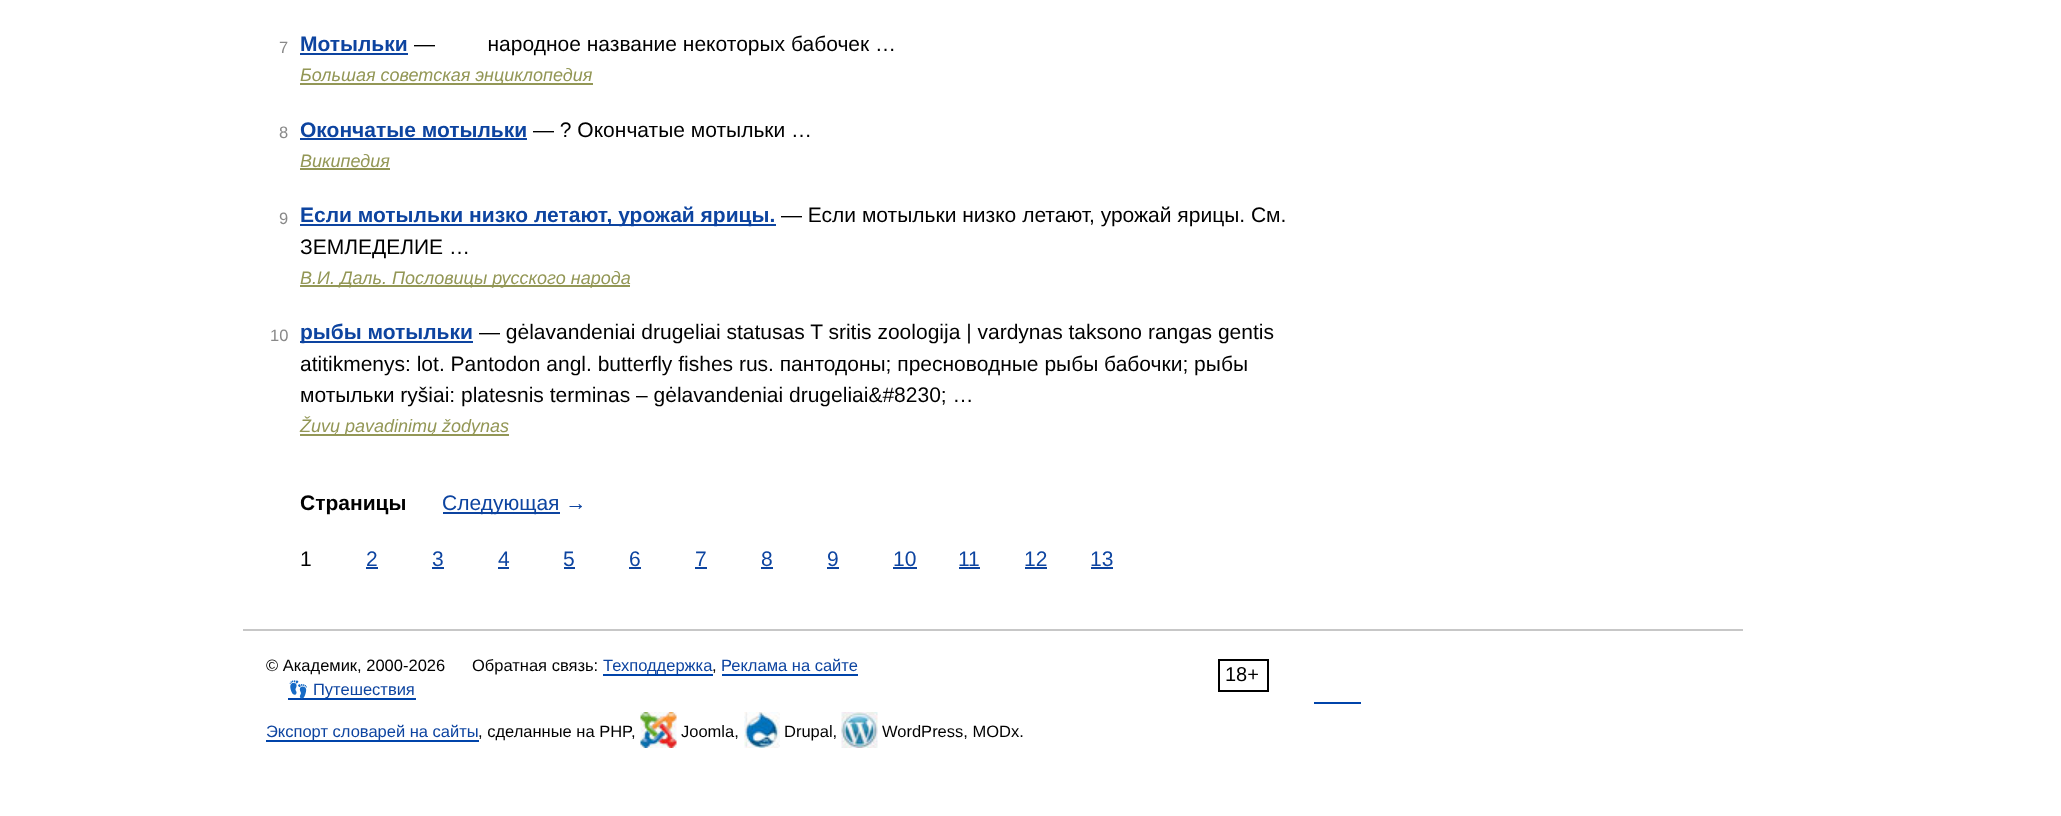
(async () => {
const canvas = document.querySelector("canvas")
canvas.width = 2061
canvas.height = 816
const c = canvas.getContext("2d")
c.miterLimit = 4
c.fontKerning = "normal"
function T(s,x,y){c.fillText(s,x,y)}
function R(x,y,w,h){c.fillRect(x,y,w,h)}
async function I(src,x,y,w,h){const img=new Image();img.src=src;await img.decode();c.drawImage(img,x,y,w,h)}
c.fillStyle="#fff"
R(0,0,2061,816)
c.font="16.5px Liberation Sans"
c.fillStyle="#898989"
T("7",279,53)
c.font="bold 21px Liberation Sans"
c.fillStyle="#0d44a0"
T("Мотыльки",300,51)
R(300,53,108,2)
c.font="21px Liberation Sans"
c.fillStyle="#000"
T("—         народное название некоторых бабочек …",414,51)
c.fillStyle="#939756"
R(300,83,293,2)
c.font="italic 18px Liberation Sans"
T("Большая советская энциклопедия",300,81)
c.font="16.5px Liberation Sans"
c.fillStyle="#898989"
T("8",279,138)
c.font="bold 21px Liberation Sans"
c.fillStyle="#0d44a0"
T("Окончатые мотыльки",300,137)
R(300,138,227,2)
c.font="21px Liberation Sans"
c.fillStyle="#000"
T("— ? Окончатые мотыльки …",533,137)
c.font="italic 18px Liberation Sans"
c.fillStyle="#939756"
T("Википедия",300,167)
R(300,168,90,2)
c.font="16.5px Liberation Sans"
c.fillStyle="#898989"
T("9",279,224)
c.fillStyle="#0d44a0"
R(300,224,476,2)
c.font="bold 21px Liberation Sans"
T("Если мотыльки низко летают, урожай ярицы.",300,222)
c.font="21px Liberation Sans"
c.fillStyle="#000"
T("— Если мотыльки низко летают, урожай ярицы. См.",781,222)
T("ЗЕМЛЕДЕЛИЕ …",300,254)
c.fillStyle="#939756"
R(300,285,330,2)
c.font="italic 18px Liberation Sans"
T("В.И. Даль. Пословицы русского народа",300,284)
c.font="16.5px Liberation Sans"
c.fillStyle="#898989"
T("10",270,341)
c.fillStyle="#0d44a0"
R(300,341,173,2)
c.font="bold 21px Liberation Sans"
T("рыбы мотыльки",300,339)
c.font="21px Liberation Sans"
c.fillStyle="#000"
T("— gėlavandeniai drugeliai statusas T sritis zoologija | vardynas taksono rangas gentis",479,339)
T("atitikmenys: lot. Pantodon angl. butterfly fishes rus. пантодоны; пресноводные рыбы бабочки; рыбы",300,371)
T("мотыльки ryšiai: platesnis terminas – gėlavandeniai drugeliai&#8230; …",300,402)
c.fillStyle="#939756"
R(300,434,209,2)
c.font="italic 18px Liberation Sans"
T("Žuvų pavadinimų žodynas",300,432)
c.font="bold 21px Liberation Sans"
c.fillStyle="#000"
T("Страницы",300,510)
c.fillStyle="#0d44a0"
R(443,512,117,2)
c.font="21px Liberation Sans"
T("Следующая →",442,510)
c.fillStyle="#000"
T("1",300,566)
c.fillStyle="#0d44a0"
T("2",366,566)
R(366,567,12,2)
T("3",432,566)
R(432,567,12,2)
T("4",498,566)
R(498,567,11,2)
T("5",563,566)
R(564,567,11,2)
T("6",629,566)
R(629,567,12,2)
T("7",695,566)
R(695,567,12,2)
T("8",761,566)
R(761,567,12,2)
T("9",827,566)
R(827,567,12,2)
T("10",893,566)
R(893,567,24,2)
T("11",958,566)
R(959,567,21,2)
T("12",1024,566)
R(1025,567,22,2)
T("13",1090,566)
R(1091,567,22,2)
c.fillStyle="#c7c7c7"
R(243,629,1500,2)
c.font="16.5px Liberation Sans"
c.fillStyle="#000"
T("© Академик, 2000-2026",266,671)
T("Обратная связь:",472,671)
c.fillStyle="#04a"
R(603,674,110,2)
c.fillStyle="#0d44a0"
T("Техподдержка",603,671)
c.fillStyle="#000"
T(",",712,671)
c.fillStyle="#04a"
R(722,674,136,2)
c.fillStyle="#0d44a0"
T("Реклама на сайте",721,671)
c.strokeStyle="#000"
c.lineWidth=2
c.strokeRect(1219,660,49,31)
c.font="20px Liberation Sans"
c.fillStyle="#000"
T("18+",1225,681)
c.fillStyle="#04a"
R(288,698,128,2)
c.font="16.5px Noto Color Emoji"
c.fillStyle="#0d44a0"
T("👣",288,695)
c.font="16.5px Liberation Sans"
T("Путешествия",313,695)
c.fillStyle="#04a"
R(1314,702,47,2)
R(266,740,213,2)
c.fillStyle="#0d44a0"
T("Экспорт словарей на сайты",266,737)
c.fillStyle="#000"
T(", сделанные на PHP,",478,737)
await I("1.png",640,712,37,36)
T("Joomla,",681,737)
await I("2.png",744,712,36,36)
T("Drupal,",784,737)
await I("3.png",841,712,37,36)
T("WordPress, MODx.",882,737)
})()
